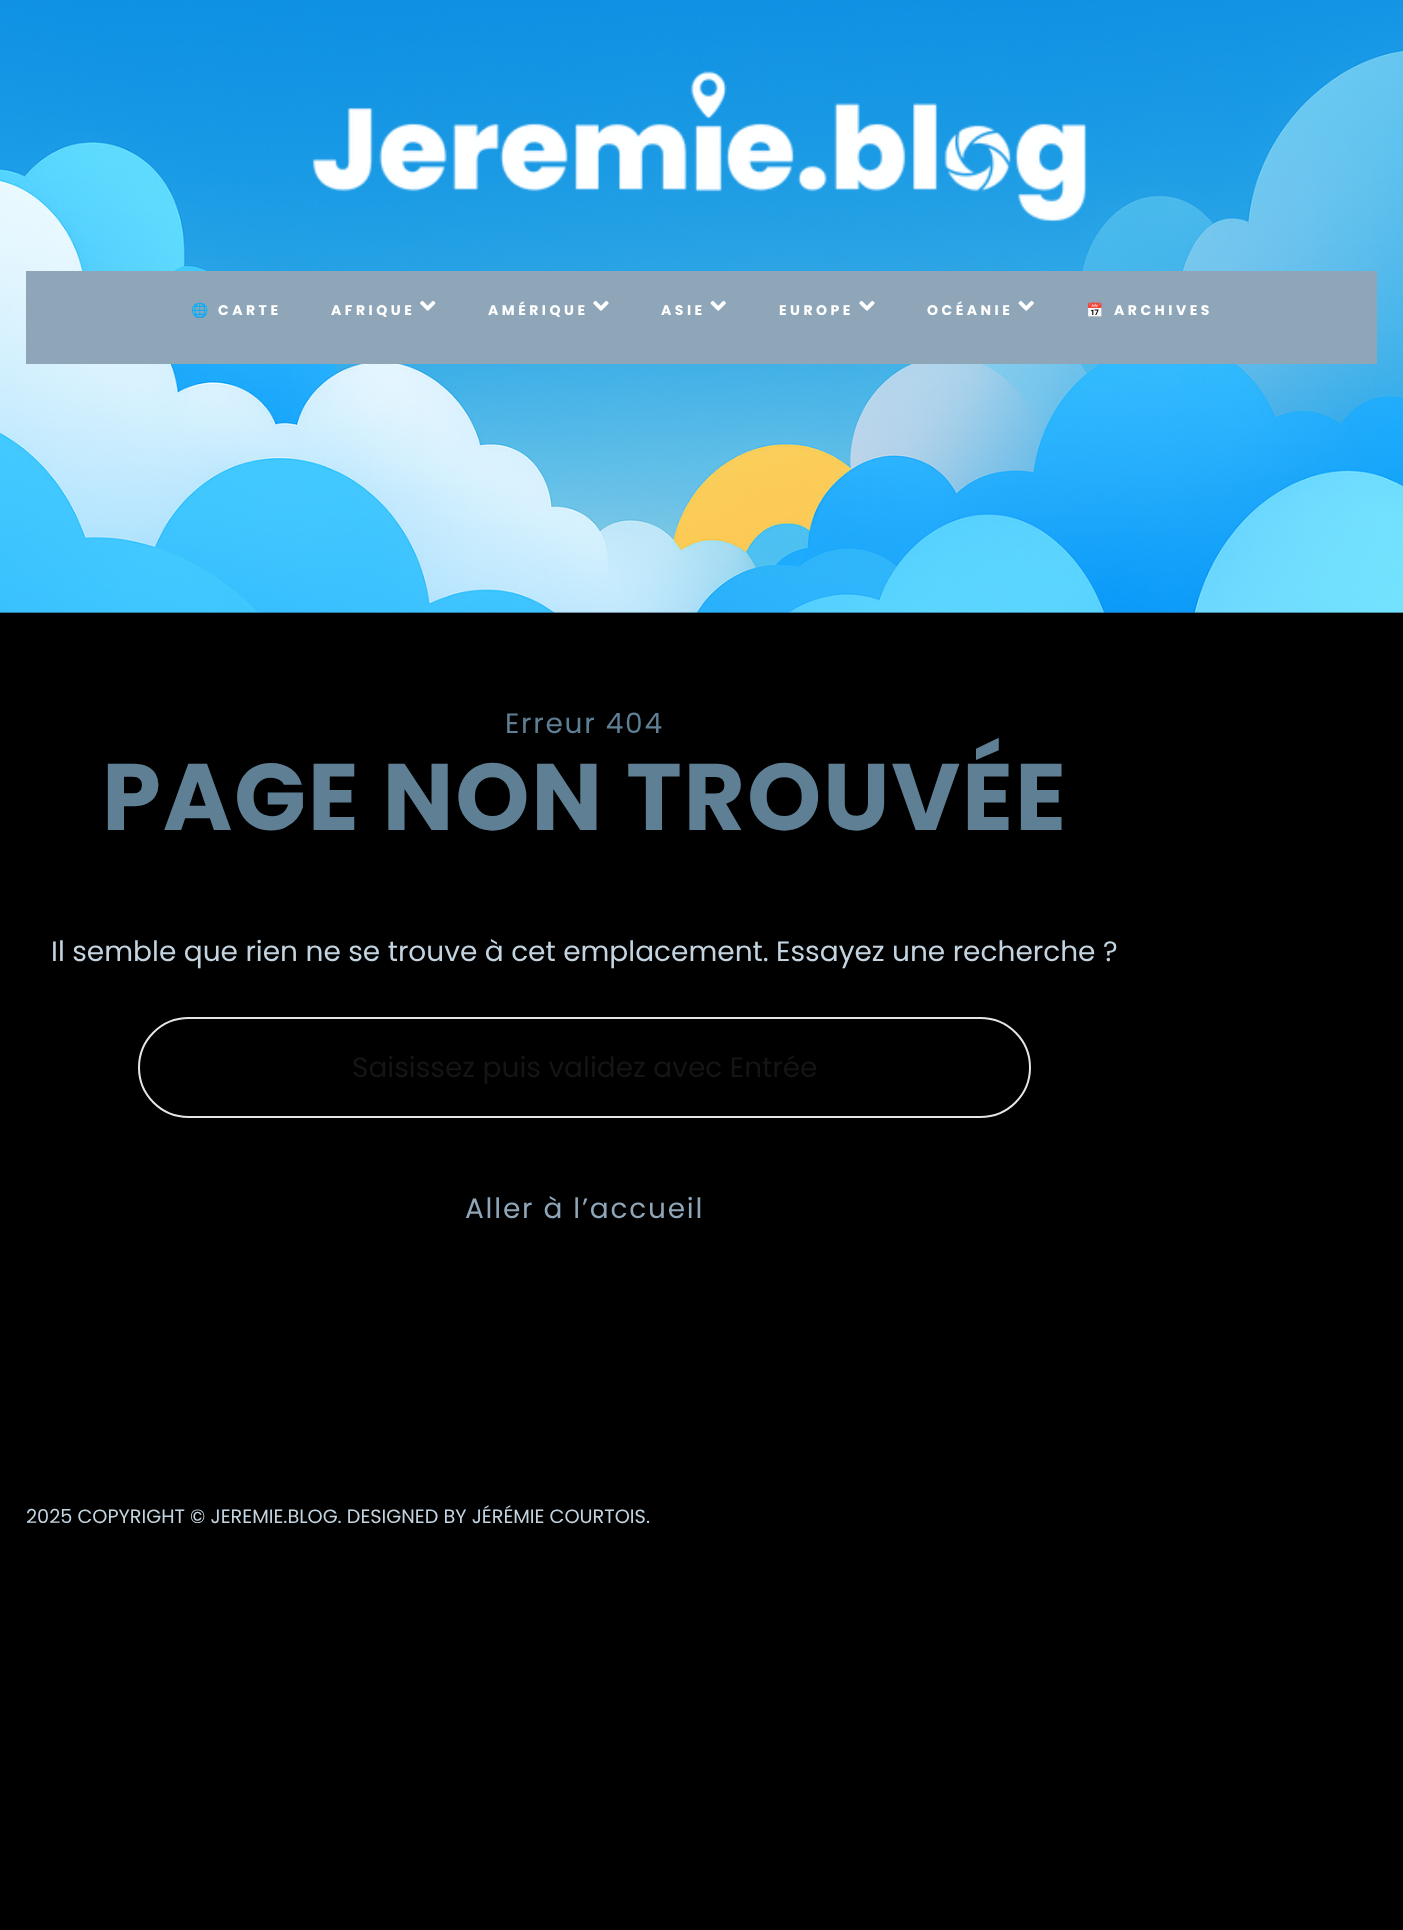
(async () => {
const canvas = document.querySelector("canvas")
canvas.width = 1403
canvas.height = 1930
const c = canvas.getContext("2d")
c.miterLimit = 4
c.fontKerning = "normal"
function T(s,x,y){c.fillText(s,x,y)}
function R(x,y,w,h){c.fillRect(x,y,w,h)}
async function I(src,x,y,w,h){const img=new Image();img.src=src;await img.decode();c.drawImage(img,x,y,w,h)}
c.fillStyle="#000"
R(0,0,1403,1930)
c.fillStyle="#203644"
R(0,612,1403,1)
await I("1.png",0,0,1403,613)
await I("2.png",312,71,775,151)
c.fillStyle="#8fa6b8"
R(26,271,1351,93)
c.letterSpacing="3.5px"
c.font="bold 14px Noto Color Emoji"
c.fillStyle="#fff"
T("🌐",191,315)
c.font="bold 14px Poppins"
T("CARTE",218,315)
T("AFRIQUE",331,315)
await I("3.png",420,300,16,11)
T("AMÉRIQUE",488,315)
await I("4.png",593,300,16,11)
T("ASIE",661,315)
await I("5.png",710,300,16,11)
T("EUROPE",779,315)
await I("4.png",859,300,16,11)
T("OCÉANIE",927,315)
await I("5.png",1018,300,16,11)
c.font="bold 14px Noto Color Emoji"
T("📅",1086,315)
c.font="bold 14px Poppins"
T("ARCHIVES",1114,315)
c.letterSpacing="1.75px"
c.font="28px Poppins"
c.fillStyle="#5f7f95"
T("Erreur 404",505,733)
c.font="bold 94.5px Poppins"
T("PAGE NON TROUVÉE",102,830)
c.letterSpacing="0px"
c.font="28px Poppins"
c.fillStyle="#c3d4e0"
T("Il semble que rien ne se trouve à cet emplacement. Essayez une recherche ?",51,961)
c.beginPath()
c.roundRect(139,1018,891,99,49.5)
c.strokeStyle="#e5e5e5"
c.lineWidth=2
c.stroke()
c.fillStyle="#151515"
T("Saisissez puis validez avec Entrée",352,1077)
c.letterSpacing="1.75px"
c.fillStyle="#8fa6b8"
T("Aller à l’accueil",465,1218)
c.letterSpacing="0px"
c.font="19.25px Poppins"
c.fillStyle="#c3d4e0"
T("2025 COPYRIGHT © JEREMIE.BLOG. DESIGNED BY JÉRÉMIE COURTOIS.",26,1523)
})()
